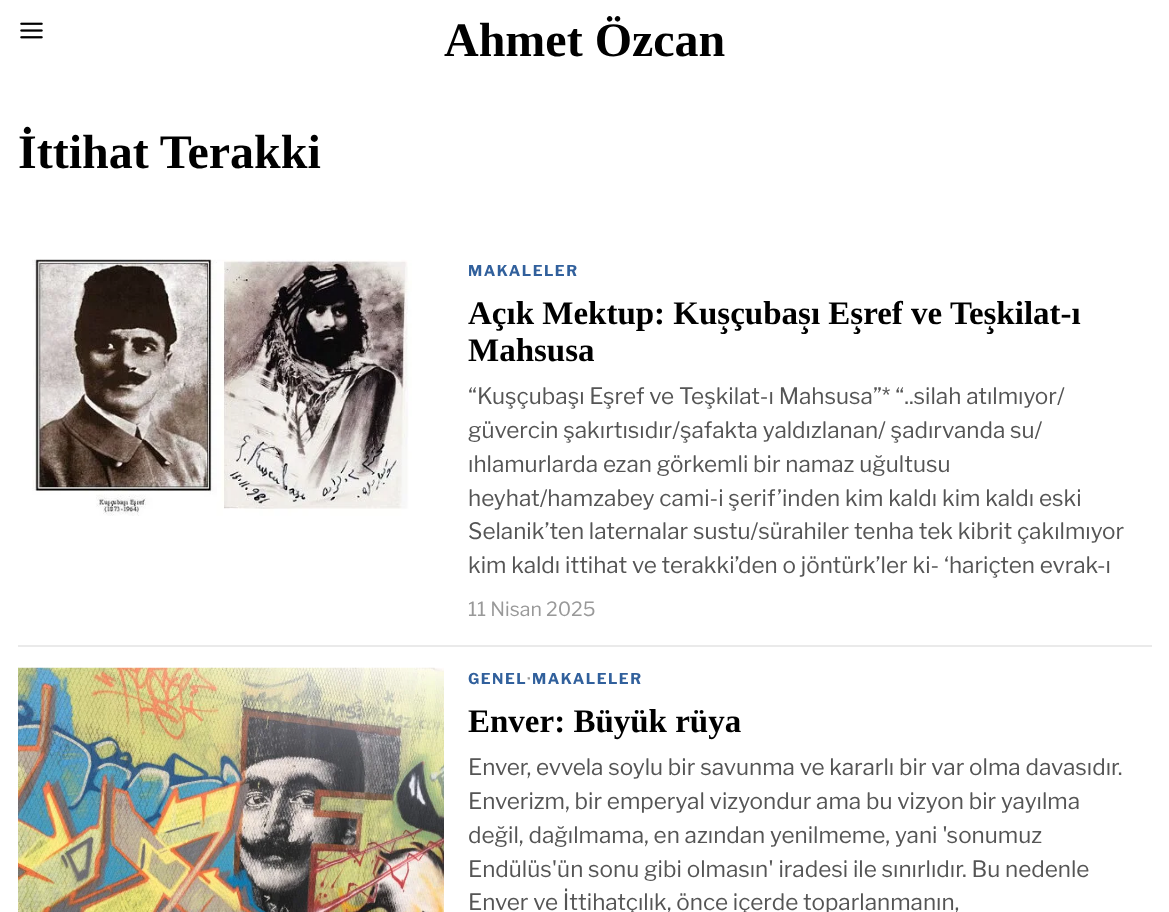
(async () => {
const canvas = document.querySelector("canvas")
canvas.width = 1169
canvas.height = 912
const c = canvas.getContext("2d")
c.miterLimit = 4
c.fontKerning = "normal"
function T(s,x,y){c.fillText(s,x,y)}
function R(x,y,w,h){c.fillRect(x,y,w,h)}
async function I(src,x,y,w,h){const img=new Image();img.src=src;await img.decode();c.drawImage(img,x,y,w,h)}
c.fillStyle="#fff"
R(0,0,1169,912)
await I("1.png",20,22,23,17)
c.font="bold 48px Liberation Serif"
c.fillStyle="#000"
T("Ahmet Özcan",444,56)
T("İttihat Terakki",18,168)
await I("2.png",32,259,380,257)
c.letterSpacing="1.5px"
c.font="bold 15px Libre Franklin"
c.fillStyle="#31609c"
T("MAKALELER",468,276)
c.letterSpacing="0px"
c.font="bold 33px Liberation Serif"
c.fillStyle="#000"
T("Açık Mektup: Kuşçubaşı Eşref ve Teşkilat-ı",468,324)
T("Mahsusa",468,361)
c.font="22.5px Libre Franklin"
c.fillStyle="#555"
T("“Kuşçubaşı Eşref ve Teşkilat-ı Mahsusa”* “..silah atılmıyor/",468,404)
T("güvercin şakırtısıdır/şafakta yaldızlanan/ şadırvanda su/",468,438)
T("ıhlamurlarda ezan görkemli bir namaz uğultusu",468,472)
T("heyhat/hamzabey cami-i şerif’inden kim kaldı kim kaldı eski",468,506)
T("Selanik’ten laternalar sustu/sürahiler tenha tek kibrit çakılmıyor",468,539)
T("kim kaldı ittihat ve terakki’den o jöntürk’ler ki- ‘hariçten evrak-ı",468,573)
c.font="19.5px Libre Franklin"
c.fillStyle="#999"
T("11 Nisan 2025",468,616)
c.fillStyle="#eaeaea"
R(18,645,1134,2)
await I("3.png",18,667,426,245)
c.letterSpacing="1.5px"
c.font="bold 15px Libre Franklin"
c.fillStyle="#31609c"
T("GENEL",468,684)
c.fillStyle="#999"
T("·",527,684)
c.fillStyle="#31609c"
T("MAKALELER",532,684)
c.letterSpacing="0px"
c.font="bold 33px Liberation Serif"
c.fillStyle="#000"
T("Enver: Büyük rüya",468,732)
c.font="22.5px Libre Franklin"
c.fillStyle="#555"
T("Enver, evvela soylu bir savunma ve kararlı bir var olma davasıdır.",468,775)
T("Enverizm, bir emperyal vizyondur ama bu vizyon bir yayılma",468,809)
T("değil, dağılmama, en azından yenilmeme, yani 'sonumuz",468,843)
T("Endülüs'ün sonu gibi olmasın' iradesi ile sınırlıdır. Bu nedenle",468,877)
T("Enver ve İttihatçılık, önce içerde toparlanmanın,",468,910)
})()
